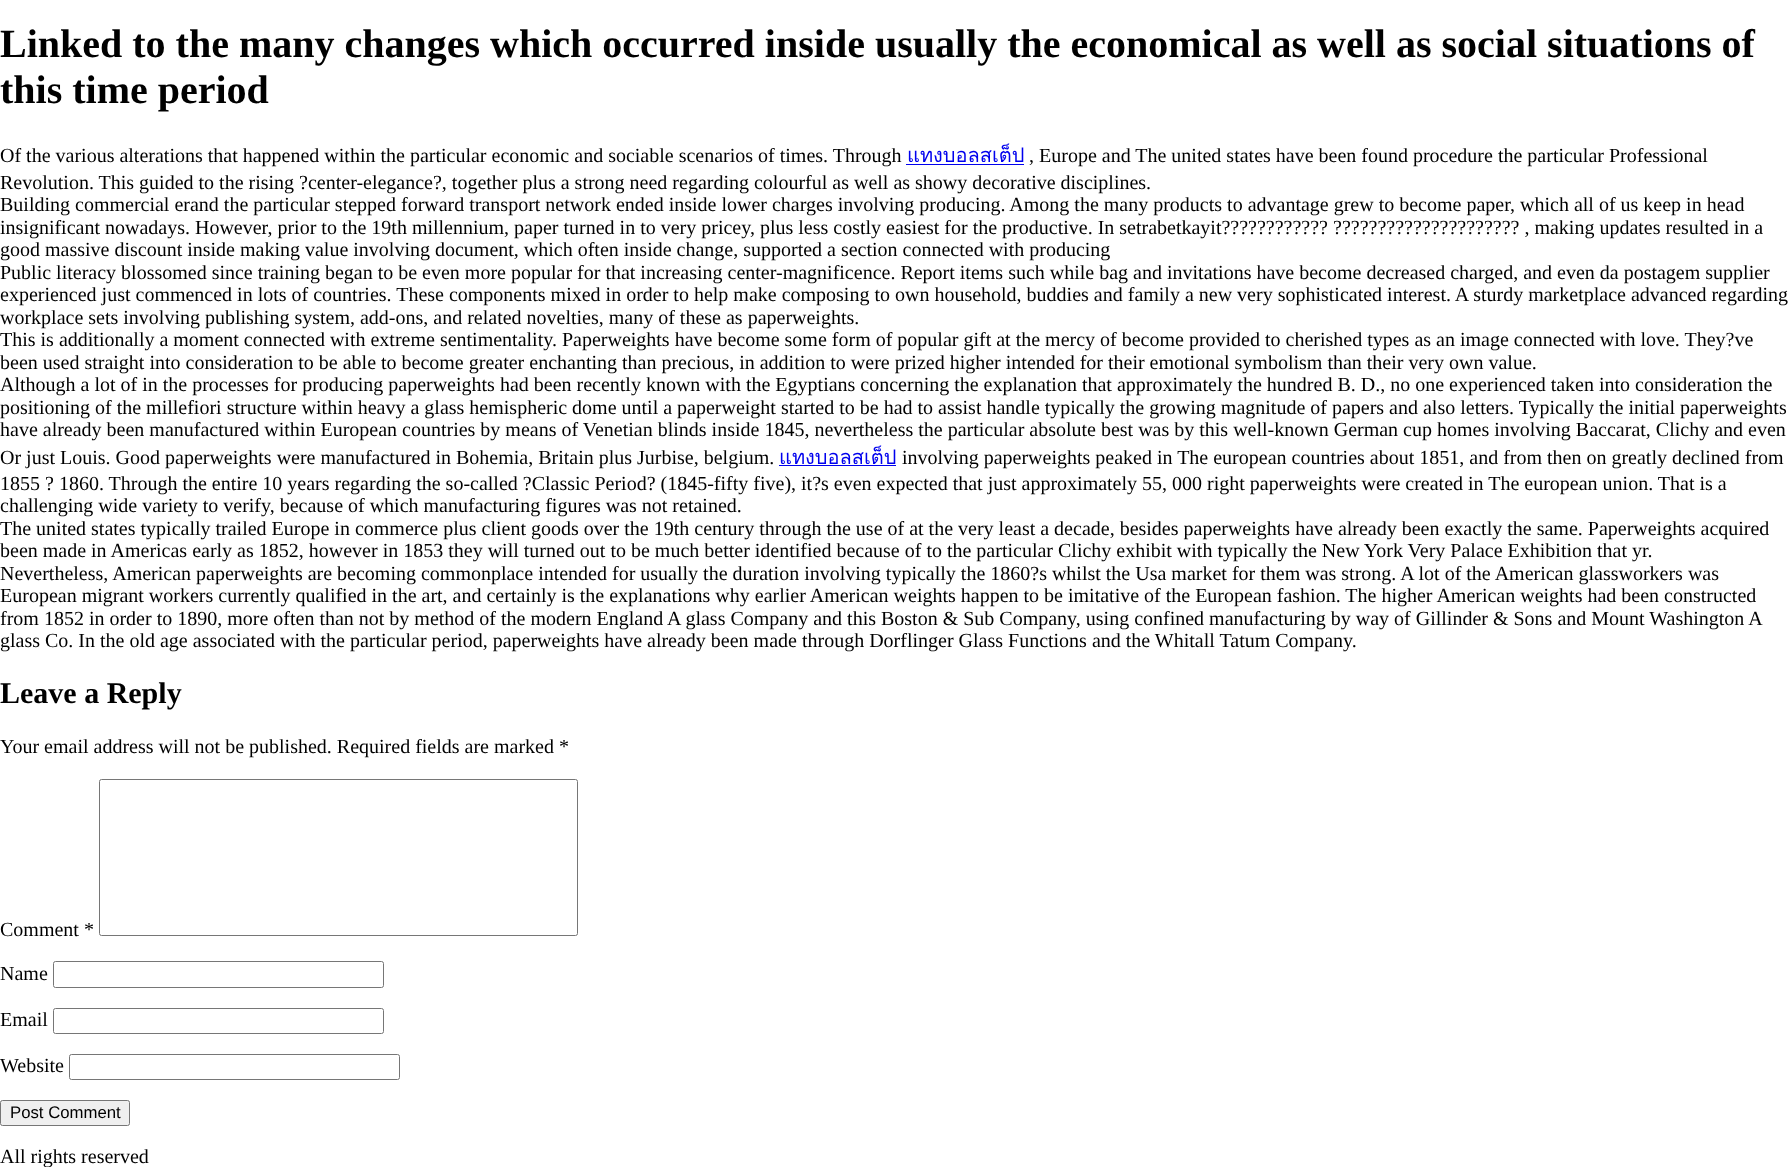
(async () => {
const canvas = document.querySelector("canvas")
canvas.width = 1788
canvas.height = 1167
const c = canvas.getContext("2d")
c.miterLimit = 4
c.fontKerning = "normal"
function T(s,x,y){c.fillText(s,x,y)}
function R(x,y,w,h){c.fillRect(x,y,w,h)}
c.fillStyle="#fff"
R(0,0,1788,1167)
c.font="bold 40px Liberation Serif"
c.fillStyle="#000"
T("Linked to the many changes which occurred inside usually the economical as well as social situations of",0,57)
T("this time period",0,103)
c.font="20px Liberation Serif"
T("Of the various alterations that happened within the particular economic and sociable scenarios of times. Through",0,162)
c.font="20px Loma"
c.fillStyle="#00e"
T("แทงบอลสเต็ป",907,162)
R(906,164,118,1)
c.font="20px Liberation Serif"
c.fillStyle="#000"
T(", Europe and The united states have been found procedure the particular Professional",1029,162)
T("Revolution. This guided to the rising ?center-elegance?, together plus a strong need regarding colourful as well as showy decorative disciplines.",0,189)
T("Building commercial erand the particular stepped forward transport network ended inside lower charges involving producing. Among the many products to advantage grew to become paper, which all of us keep in head",0,211)
T("insignificant nowadays. However, prior to the 19th millennium, paper turned in to very pricey, plus less costly easiest for the productive. In setrabetkayit???????????? ????????????????????? , making updates resulted in a",0,234)
T("good massive discount inside making value involving document, which often inside change, supported a section connected with producing",0,256)
T("Public literacy blossomed since training began to be even more popular for that increasing center-magnificence. Report items such while bag and invitations have become decreased charged, and even da postagem supplier",0,279)
T("experienced just commenced in lots of countries. These components mixed in order to help make composing to own household, buddies and family a new very sophisticated interest. A sturdy marketplace advanced regarding",0,301)
T("workplace sets involving publishing system, add-ons, and related novelties, many of these as paperweights.",0,324)
T("This is additionally a moment connected with extreme sentimentality. Paperweights have become some form of popular gift at the mercy of become provided to cherished types as an image connected with love. They?ve",0,346)
T("been used straight into consideration to be able to become greater enchanting than precious, in addition to were prized higher intended for their emotional symbolism than their very own value.",0,369)
T("Although a lot of in the processes for producing paperweights had been recently known with the Egyptians concerning the explanation that approximately the hundred B. D., no one experienced taken into consideration the",0,391)
T("positioning of the millefiori structure within heavy a glass hemispheric dome until a paperweight started to be had to assist handle typically the growing magnitude of papers and also letters. Typically the initial paperweights",0,414)
T("have already been manufactured within European countries by means of Venetian blinds inside 1845, nevertheless the particular absolute best was by this well-known German cup homes involving Baccarat, Clichy and even",0,436)
T("Or just Louis. Good paperweights were manufactured in Bohemia, Britain plus Jurbise, belgium.",0,464)
c.font="20px Loma"
c.fillStyle="#00e"
T("แทงบอลสเต็ป",779,464)
R(779,465,117,1)
c.font="20px Liberation Serif"
c.fillStyle="#000"
T("involving paperweights peaked in The european countries about 1851, and from then on greatly declined from",902,464)
T("1855 ? 1860. Through the entire 10 years regarding the so-called ?Classic Period? (1845-fifty five), it?s even expected that just approximately 55, 000 right paperweights were created in The european union. That is a",0,490)
T("challenging wide variety to verify, because of which manufacturing figures was not retained.",0,512)
T("The united states typically trailed Europe in commerce plus client goods over the 19th century through the use of at the very least a decade, besides paperweights have already been exactly the same. Paperweights acquired",0,535)
T("been made in Americas early as 1852, however in 1853 they will turned out to be much better identified because of to the particular Clichy exhibit with typically the New York Very Palace Exhibition that yr.",0,557)
T("Nevertheless, American paperweights are becoming commonplace intended for usually the duration involving typically the 1860?s whilst the Usa market for them was strong. A lot of the American glassworkers was",0,580)
T("European migrant workers currently qualified in the art, and certainly is the explanations why earlier American weights happen to be imitative of the European fashion. The higher American weights had been constructed",0,602)
T("from 1852 in order to 1890, more often than not by method of the modern England A glass Company and this Boston & Sub Company, using confined manufacturing by way of Gillinder & Sons and Mount Washington A",0,625)
T("glass Co. In the old age associated with the particular period, paperweights have already been made through Dorflinger Glass Functions and the Whitall Tatum Company.",0,647)
c.font="bold 30px Liberation Serif"
T("Leave a Reply",0,703)
c.font="20px Liberation Serif"
T("Your email address will not be published. Required fields are marked *",0,753)
T("Comment *",0,936)
c.beginPath()
c.roundRect(99.5,779.5,478,156,2)
c.strokeStyle="#767676"
c.stroke()
T("Name",0,980)
c.beginPath()
c.roundRect(53.5,961.5,330,26,2)
c.stroke()
T("Email",0,1026)
c.beginPath()
c.roundRect(53.5,1008.5,330,25,2)
c.stroke()
T("Website",0,1072)
c.beginPath()
c.roundRect(69.5,1054.5,330,25,2)
c.stroke()
c.fillStyle="#efefef"
c.beginPath()
c.roundRect(.5,1100.5,129,25,2)
c.fill()
c.stroke()
c.font="16.75px Liberation Sans"
c.fillStyle="#000"
T("Post Comment",10,1118)
c.font="20px Liberation Serif"
T("All rights reserved",0,1163)
})()
